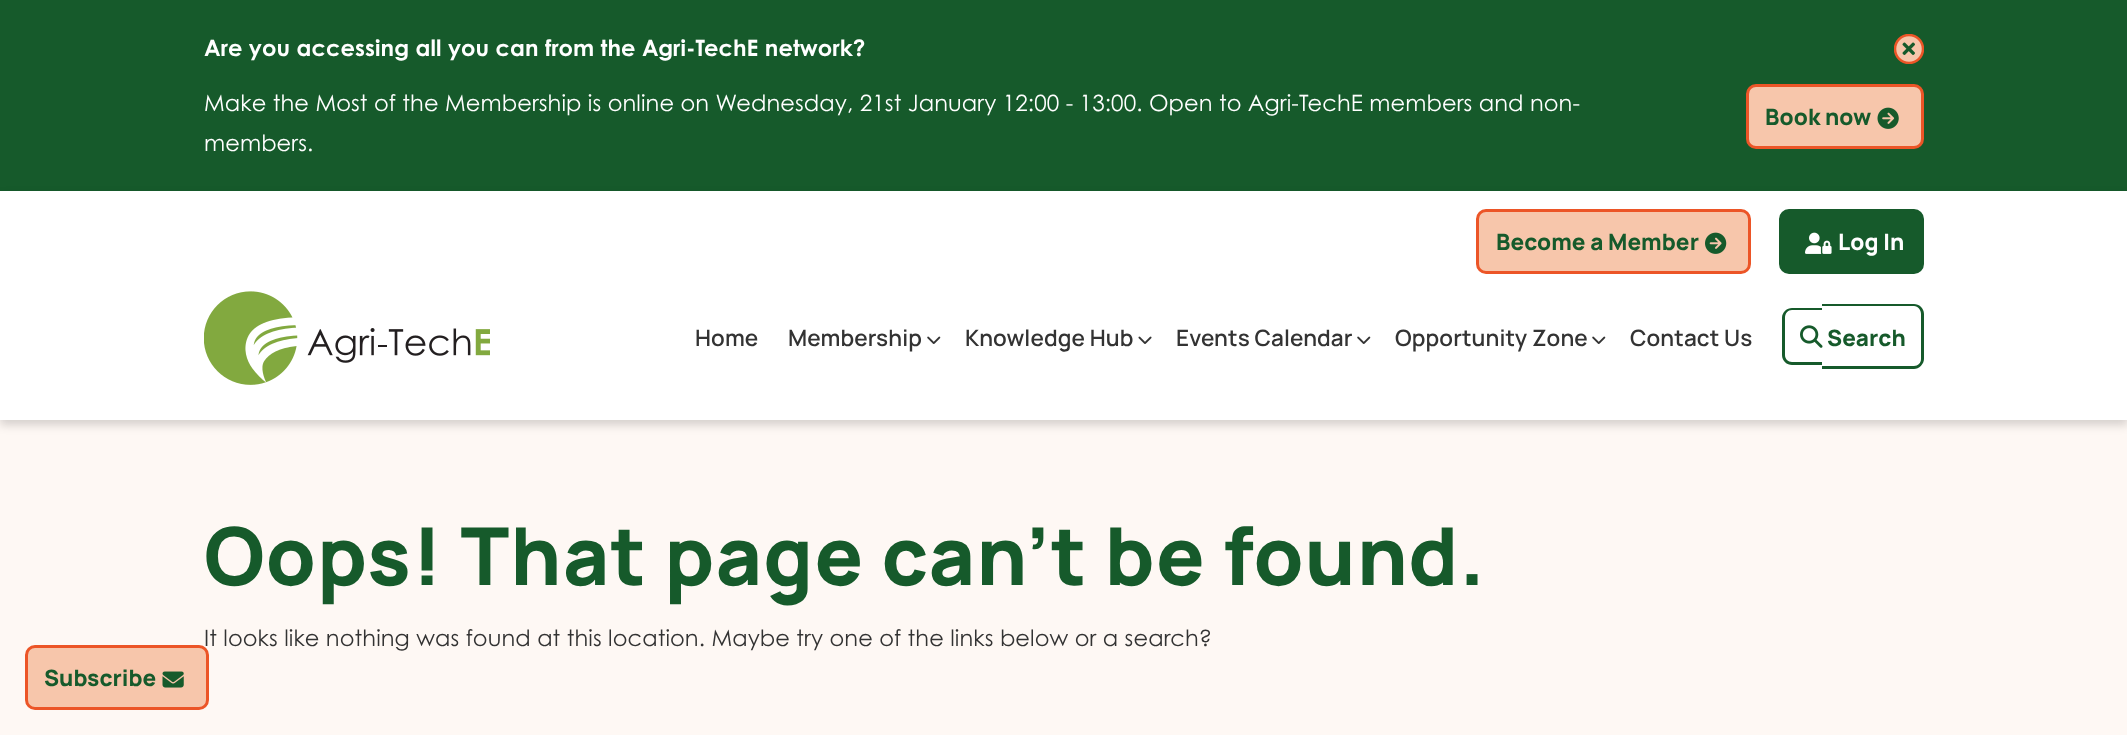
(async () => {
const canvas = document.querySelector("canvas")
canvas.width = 2127
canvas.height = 735
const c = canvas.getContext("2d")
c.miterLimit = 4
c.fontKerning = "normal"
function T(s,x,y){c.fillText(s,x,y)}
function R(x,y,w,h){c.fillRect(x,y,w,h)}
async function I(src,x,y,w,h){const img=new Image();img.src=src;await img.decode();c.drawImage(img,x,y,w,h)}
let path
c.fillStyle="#fef8f4"
R(0,0,2127,735)
c.fillStyle="#165a2b"
R(0,0,2127,191)
c.letterSpacing="0.11px"
c.font="bold 22.5px Century Gothic"
c.fillStyle="#fff"
T("Are you accessing all you can from the Agri-TechE network?",204,56)
await I("1.png",1894,34,30,30)
c.font="22.5px Century Gothic"
T("Make the Most of the Membership is online on Wednesday, 21st January 12:00 - 13:00. Open to Agri-TechE members and non-",204,111)
T("members.",204,151)
c.fillStyle="#f7c6ab"
c.beginPath()
c.roundRect(1747.5,85.5,175,62,8.5)
c.fill()
c.strokeStyle="#ec5527"
c.lineWidth=3
c.stroke()
c.font="800 22.5px Manrope"
c.fillStyle="#165a2b"
T("Book now",1765,125)
await I("2.png",1877,107,22,22)
c.fillStyle="#00000029"
c.filter="blur(5px)"
c.beginPath()
c.rect(0,196,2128,229)
c.fill()
c.filter="none"
c.fillStyle="#fff"
R(0,191,2127,229)
c.fillStyle="#f7c6ab"
c.beginPath()
c.roundRect(1477.5,210.5,272,62,8.5)
c.fill()
c.stroke()
c.fillStyle="#165a2b"
T("Become a Member",1496,250)
await I("3.png",1705,232,22,22)
c.beginPath()
c.roundRect(1780.5,210.5,142,62,8.5)
c.fill()
c.strokeStyle="#165a2b"
c.stroke()
await I("4.png",1805,232,27,22)
c.fillStyle="#fff"
T("Log In",1838,250)
await I("5.png",204,291,286,94)
c.font="600 22.5px Manrope"
c.fillStyle="#333"
T("Home",695,346)
T("Membership",788,346)
await I("6.png",927,336,14,8)
T("Knowledge Hub",965,346)
await I("7.png",1138,336,14,8)
T("Events Calendar",1176,346)
await I("6.png",1357,336,14,8)
T("Opportunity Zone",1395,346)
await I("6.png",1592,336,14,8)
T("Contact Us",1630,346)
c.fillStyle="#165a2b"
path = new Path2D("M1792 308h30v57h-30c-5 0-10-4-10-10v-37c0-6 5-10 10-10zm0 2h30v52h-30c-4 0-7-3-7-7v-37c0-5 3-8 7-8z")
c.fill(path,"evenodd")
path = new Path2D("M1822 304h92c5 0 10 4 10 10v45c0 5-5 10-10 10h-92zm0 2h92c4 0 7 4 7 8v45c0 4-3 7-7 7h-92z")
c.fill(path,"evenodd")
await I("8.png",1800,325,23,23)
c.font="800 22.5px Manrope"
T("Search",1827,346)
c.letterSpacing="1.2px"
c.font="800 80px Manrope"
T("Oops! That page can’t be found.",204,585)
c.letterSpacing="0.11px"
c.font="22.5px Century Gothic"
c.fillStyle="#333"
T("It looks like nothing was found at this location. Maybe try one of the links below or a search?",204,646)
c.fillStyle="#f7c6ab"
c.beginPath()
c.roundRect(26.5,646.5,181,62,8.5)
c.fill()
c.strokeStyle="#ec5527"
c.stroke()
c.letterSpacing="0px"
c.font="800 22.5px Manrope"
c.fillStyle="#165a2b"
T("Subscribe",44,686)
await I("9.png",162,671,22,17)
})()
